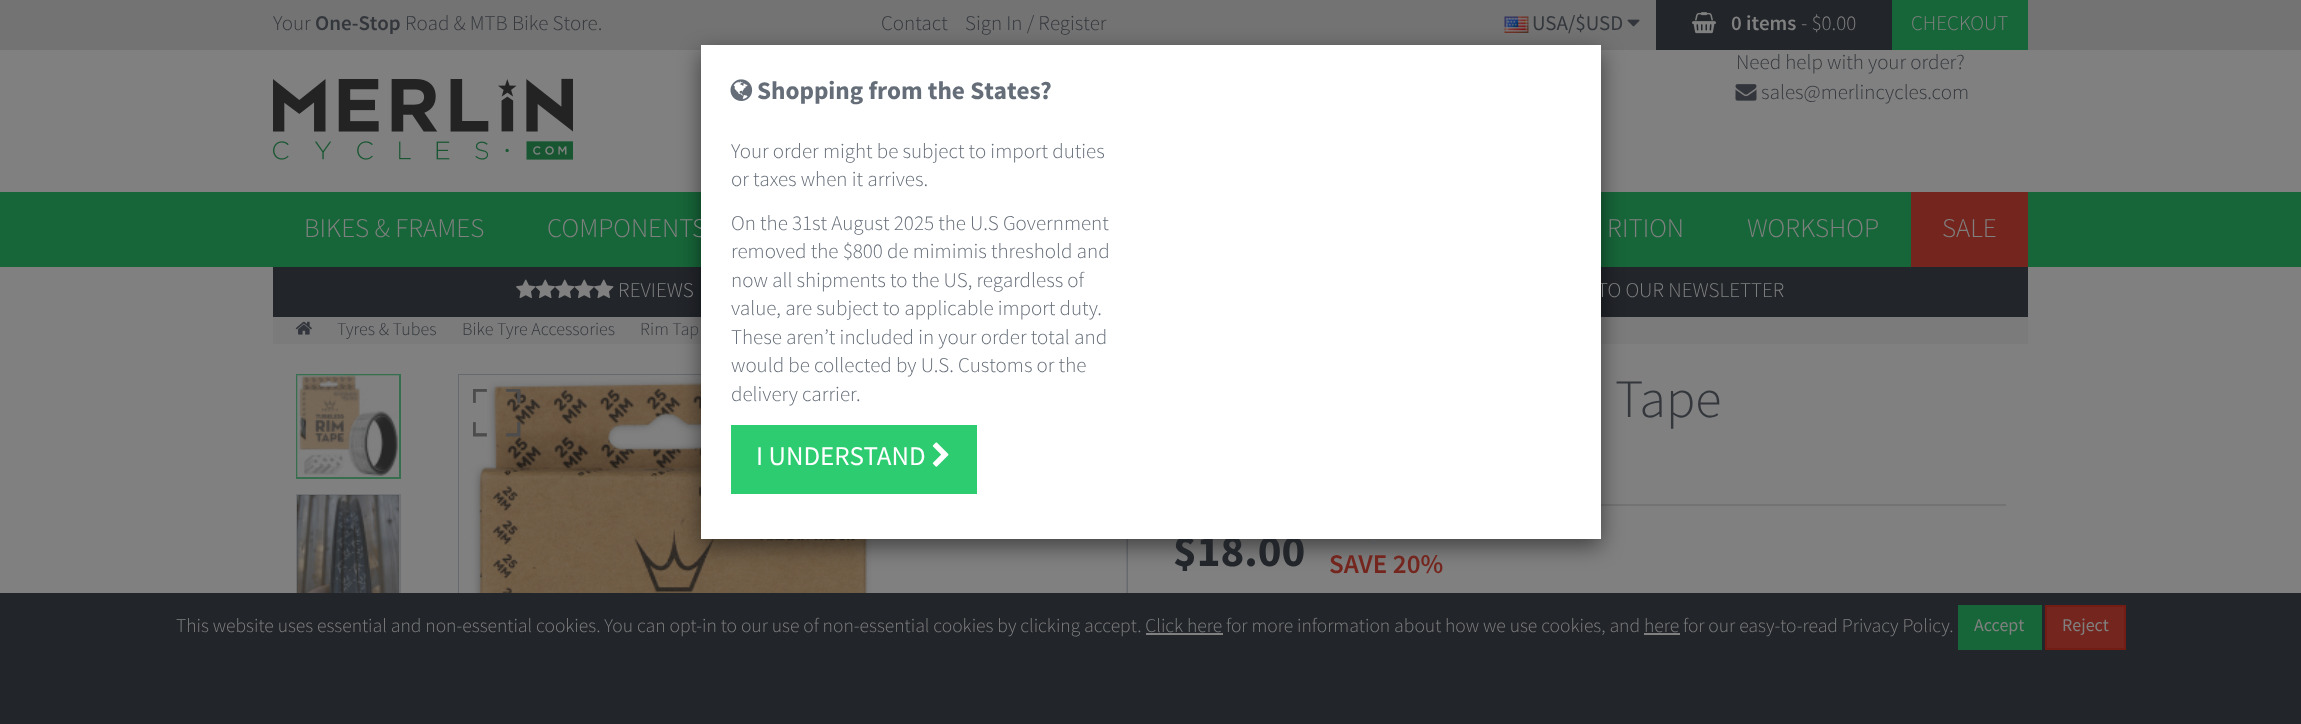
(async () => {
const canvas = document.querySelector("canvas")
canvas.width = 2301
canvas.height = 724
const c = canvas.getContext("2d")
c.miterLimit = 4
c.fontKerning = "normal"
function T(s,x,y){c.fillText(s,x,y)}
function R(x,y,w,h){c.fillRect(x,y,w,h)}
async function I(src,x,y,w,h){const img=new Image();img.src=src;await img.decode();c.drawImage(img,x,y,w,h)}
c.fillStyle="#808080"
R(0,0,2301,724)
c.fillStyle="#737373"
R(0,0,2301,50)
c.font="300 21px Source Sans Pro"
c.fillStyle="#33373c"
T("Your",273,30)
c.font="600 21px Source Sans Pro"
T("One-Stop",315,30)
c.font="300 21px Source Sans Pro"
T("Road & MTB Bike Store.",405,30)
T("Contact",881,30)
T("Sign In / Register",965,30)
await I("1.png",1504,16,25,17)
c.font="21px Source Sans Pro"
T("USA/$USD",1532,30)
await I("2.png",1627,19,13,8)
c.fillStyle="#22252a"
R(1656,0,236,50)
await I("3.png",1692,12,24,22)
c.font="600 21px Source Sans Pro"
c.fillStyle="#808080"
T("0 items",1731,30)
c.font="300 21px Source Sans Pro"
T("- $0.00",1801,30)
c.fillStyle="#176639"
R(1892,0,136,50)
c.fillStyle="#808080"
T("CHECKOUT",1911,30)
c.fillStyle="#176639"
R(0,192,2301,75)
c.fillStyle="#22252a"
R(273,267,1755,50)
c.fillStyle="#7b7b7b"
R(273,317,1755,27)
c.strokeStyle="#66696d"
c.lineWidth=2
c.strokeRect(459,375,668,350)
await I("13.png",459,375,668,218)
c.fillStyle="#737373"
R(1601,504,405,2)
c.fillStyle="#00000080"
c.filter="blur(11px)"
c.beginPath()
c.rect(701,53,900,493)
c.fill()
c.filter="none"
c.font="300 27px Source Sans Pro"
c.fillStyle="#808080"
T("COMPONENTS",547,237)
c.font="300 21px Source Sans Pro"
T("TO OUR NEWSLETTER",1597,297)
c.font="bold 45px Source Sans Pro"
c.fillStyle="#22252a"
T("$18.00",1173,566)
c.fillStyle="#fff"
R(701,45,900,494)
await I("4.png",730,79,23,22)
c.font="bold 25.25px Source Sans Pro"
c.fillStyle="#656d78"
T("Shopping from the States?",757,99)
c.font="300 21px Source Sans Pro"
T("Your order might be subject to import duties",731,158)
T("or taxes when it arrives.",731,186)
T("On the 31st August 2025 the U.S Government",731,230)
T("removed the $800 de mimimis threshold and",731,258)
T("now all shipments to the US, regardless of",731,287)
T("value, are subject to applicable import duty.",731,315)
T("These aren’t included in your order total and",731,344)
T("would be collected by U.S. Customs or the",731,372)
T("delivery carrier.",731,401)
c.fillStyle="#2ecc71"
R(731,425,246,69)
c.font="27px Source Sans Pro"
c.fillStyle="#fff"
T("I UNDERSTAND",756,465)
await I("5.png",932,442,17,25)
c.font="300 21px Source Sans Pro"
c.fillStyle="#33373c"
T("Need help with your order?",1736,69)
await I("6.png",273,78,300,82)
await I("7.png",1735,84,22,17)
T("sales@merlincycles.com",1761,99)
c.font="300 27px Source Sans Pro"
c.fillStyle="#808080"
T("BIKES & FRAMES",304,237)
T("RITION",1607,237)
T("WORKSHOP",1747,237)
c.fillStyle="#74261e"
R(1911,192,117,75)
c.fillStyle="#808080"
T("SALE",1942,237)
await I("8.png",516,279,20,20)
await I("9.png",535,279,20,20)
await I("8.png",555,279,20,20)
await I("9.png",574,279,20,20)
await I("8.png",594,279,20,20)
c.font="300 21px Source Sans Pro"
T("REVIEWS",618,297)
await I("10.png",295,321,17,14)
c.font="300 18px Source Sans Pro"
c.fillStyle="#33373c"
T("Tyres & Tubes",337,335)
T("Bike Tyre Accessories",462,335)
T("Rim Tap",640,335)
c.strokeStyle="#376e4e"
c.strokeRect(297,375,103,103)
await I("11.png",297,375,102,102)
c.strokeStyle="#6e7072"
c.strokeRect(297,495,103,103)
await I("12.png",297,495,102,98)
await I("14.png",473,389,48,48)
c.font="300 54px Source Sans Pro"
T("Tape",1615,417)
c.font="27px Source Sans Pro"
c.fillStyle="#55595f"
T(".",1370,543)
c.font="600 27px Source Sans Pro"
c.fillStyle="#74261e"
T("SAVE 20%",1329,573)
c.fillStyle="#22252a"
R(0,593,2301,131)
c.font="300 19.5px Source Sans Pro"
c.fillStyle="#808080"
T("This website uses essential and non-essential cookies. You can opt-in to our use of non-essential cookies by clicking accept. Click here for more information about how we use cookies, and here for our easy-to-read Privacy Policy.",176,632)
c.fillStyle="#176639"
R(1958,605,84,45)
c.font="18px Source Sans Pro"
c.fillStyle="#808080"
T("Accept",1974,631)
c.fillStyle="#74261e"
c.beginPath()
c.rect(2046,606,79,43)
c.fill()
c.strokeStyle="#721c13"
c.stroke()
c.fillStyle="#808080"
T("Reject",2062,631)
R(1146,633,77,2)
R(1644,633,36,2)
})()
